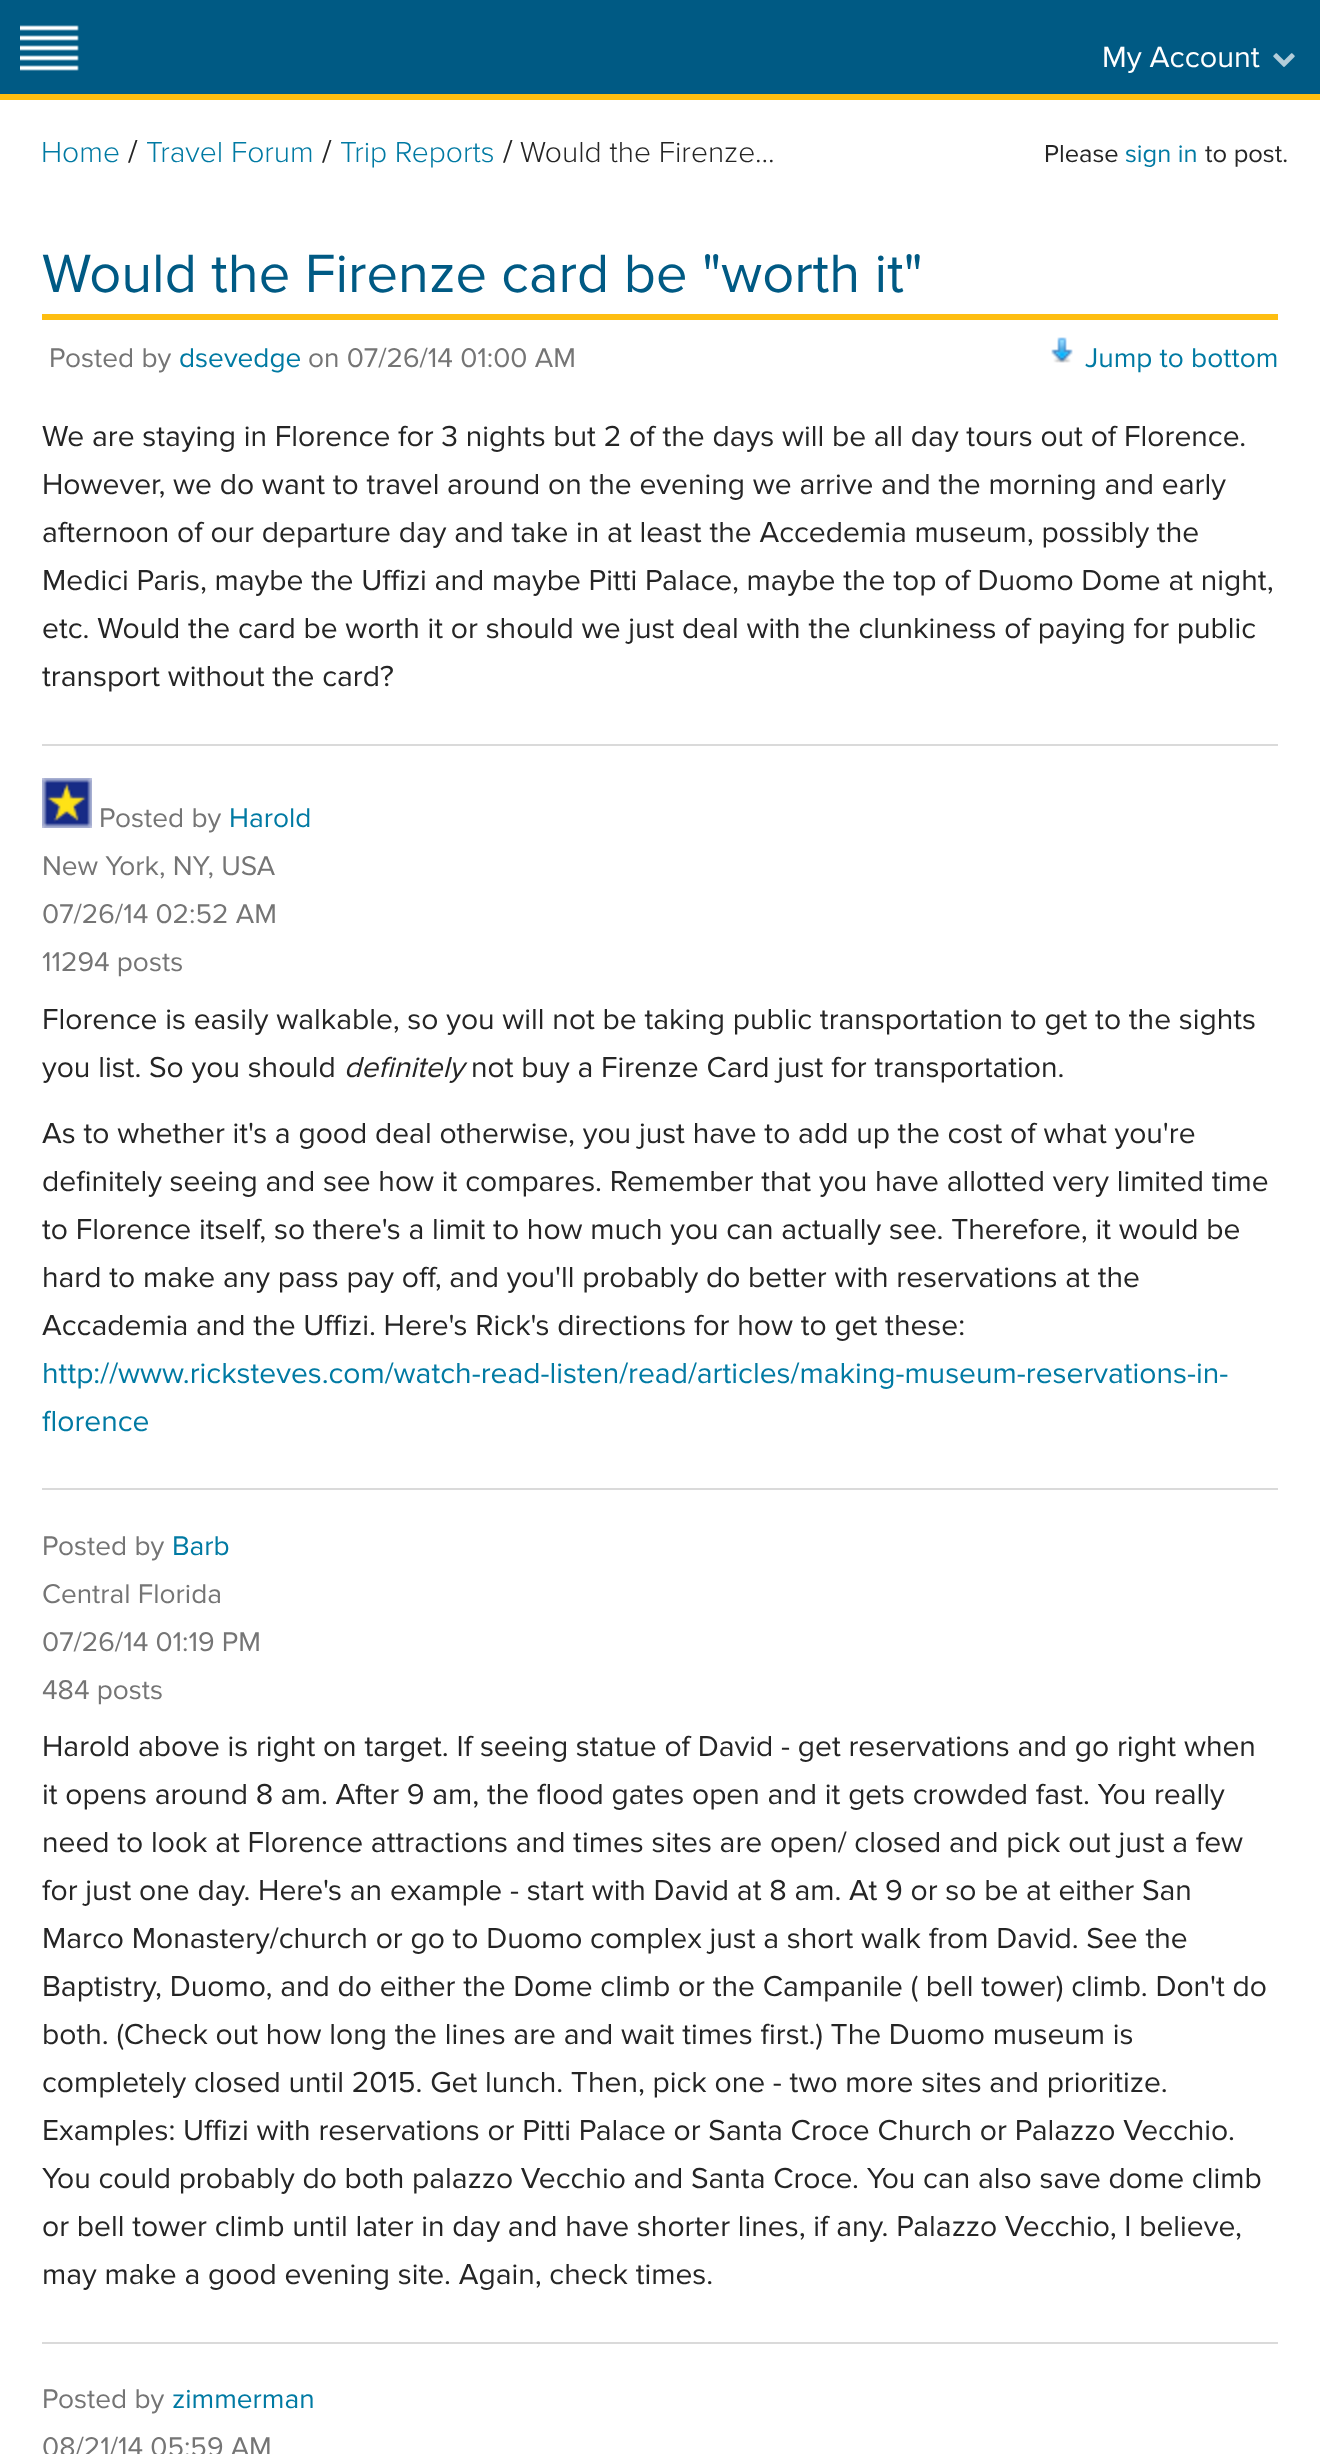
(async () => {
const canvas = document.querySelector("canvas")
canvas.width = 1320
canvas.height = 2454
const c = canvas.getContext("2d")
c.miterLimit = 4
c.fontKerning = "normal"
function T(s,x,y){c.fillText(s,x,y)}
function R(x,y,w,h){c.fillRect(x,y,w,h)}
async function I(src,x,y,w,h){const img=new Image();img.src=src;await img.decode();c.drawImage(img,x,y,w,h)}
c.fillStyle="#fff"
R(0,0,1320,2454)
c.fillStyle="#005a84"
R(0,0,1320,94)
c.fillStyle="#febe11"
R(0,94,1320,6)
await I("1.png",20,25,59,46)
c.font="30.5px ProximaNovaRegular"
c.fillStyle="#fff"
T("My Account",1102,67)
await I("2.png",1273,53,22,14)
c.font="300 30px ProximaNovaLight"
c.fillStyle="#007aa3"
T("Home",41,162)
c.font="32px ProximaNovaRegular"
c.fillStyle="#252525"
T("/",128,162)
c.font="300 30px ProximaNovaLight"
c.fillStyle="#007aa3"
T("Travel Forum",146,162)
c.font="32px ProximaNovaRegular"
c.fillStyle="#252525"
T("/",322,162)
c.font="300 30px ProximaNovaLight"
c.fillStyle="#007aa3"
T("Trip Reports",340,162)
c.font="32px ProximaNovaRegular"
c.fillStyle="#252525"
T("/",503,162)
c.font="300 30px ProximaNovaLight"
T("Would the Firenze...",520,162)
c.font="25.5px ProximaNovaRegular"
T("Please",1044,162)
c.fillStyle="#007aa3"
T("sign in",1125,162)
c.fillStyle="#252525"
T("to post.",1205,162)
c.fillStyle="#dadada"
R(42,744,1236,2)
c.fillStyle="#febe11"
R(42,314,1236,6)
c.font="56px ProximaNovaRegular"
c.fillStyle="#005a84"
T("Would the Firenze card be \"worth it\"",42,292)
c.font="28px ProximaNovaRegular"
c.fillStyle="#757575"
T("Posted by",49,367)
c.fillStyle="#007aa3"
T("dsevedge",179,367)
c.fillStyle="#757575"
T("on 07/26/14 01:00 AM",308,367)
await I("3.png",1051,337,22,26)
c.fillStyle="#007aa3"
T("Jump to bottom",1085,367)
c.font="30px ProximaNovaRegular"
c.fillStyle="#252525"
T("We are staying in Florence for 3 nights but 2 of the days will be all day tours out of Florence.",42,446)
T("However, we do want to travel around on the evening we arrive and the morning and early",42,494)
T("afternoon of our departure day and take in at least the Accedemia museum, possibly the",42,542)
T("Medici Paris, maybe the Uffizi and maybe Pitti Palace, maybe the top of Duomo Dome at night,",42,590)
T("etc. Would the card be worth it or should we just deal with the clunkiness of paying for public",42,638)
T("transport without the card?",42,686)
c.fillStyle="#dadada"
R(42,1488,1236,2)
await I("4.png",42,778,50,50)
c.font="28px ProximaNovaRegular"
c.fillStyle="#007aa3"
T("Harold",229,827)
c.fillStyle="#757575"
T("New York, NY, USA",42,875)
T("Posted by",99,827)
T("07/26/14 02:52 AM",42,923)
T("11294 posts",42,971)
c.font="30px ProximaNovaRegular"
c.fillStyle="#252525"
T("Florence is easily walkable, so you will not be taking public transportation to get to the sights",42,1029)
T("you list. So you should",42,1077)
c.font="italic 30px ProximaNovaRegular"
T("definitely",344,1077)
c.font="30px ProximaNovaRegular"
T("not buy a Firenze Card just for transportation.",471,1077)
T("As to whether it's a good deal otherwise, you just have to add up the cost of what you're",42,1143)
T("definitely seeing and see how it compares. Remember that you have allotted very limited time",42,1191)
T("to Florence itself, so there's a limit to how much you can actually see. Therefore, it would be",42,1239)
T("hard to make any pass pay off, and you'll probably do better with reservations at the",42,1287)
T("Accademia and the Uffizi. Here's Rick's directions for how to get these:",42,1335)
c.fillStyle="#007aa3"
T("http://www.ricksteves.com/watch-read-listen/read/articles/making-museum-reservations-in-",42,1383)
T("florence",42,1431)
c.fillStyle="#dadada"
R(42,2342,1236,2)
c.font="28px ProximaNovaRegular"
c.fillStyle="#007aa3"
T("Barb",172,1555)
c.fillStyle="#757575"
T("Central Florida",42,1603)
T("Posted by",42,1555)
T("07/26/14 01:19 PM",42,1651)
T("484 posts",42,1699)
c.font="30px ProximaNovaRegular"
c.fillStyle="#252525"
T("Harold above is right on target. If seeing statue of David - get reservations and go right when",42,1756)
T("it opens around 8 am. After 9 am, the flood gates open and it gets crowded fast. You really",42,1804)
T("need to look at Florence attractions and times sites are open/ closed and pick out just a few",42,1852)
T("for just one day. Here's an example - start with David at 8 am. At 9 or so be at either San",42,1900)
T("Marco Monastery/church or go to Duomo complex just a short walk from David. See the",42,1948)
T("Baptistry, Duomo, and do either the Dome climb or the Campanile ( bell tower) climb. Don't do",42,1996)
T("both. (Check out how long the lines are and wait times first.) The Duomo museum is",42,2044)
T("completely closed until 2015. Get lunch. Then, pick one - two more sites and prioritize.",42,2092)
T("Examples: Uffizi with reservations or Pitti Palace or Santa Croce Church or Palazzo Vecchio.",42,2140)
T("You could probably do both palazzo Vecchio and Santa Croce. You can also save dome climb",42,2188)
T("or bell tower climb until later in day and have shorter lines, if any. Palazzo Vecchio, I believe,",42,2236)
T("may make a good evening site. Again, check times.",42,2284)
c.font="28px ProximaNovaRegular"
c.fillStyle="#757575"
T("Posted by",42,2408)
c.fillStyle="#007aa3"
T("zimmerman",172,2408)
c.fillStyle="#757575"
T("08/21/14 05:59 AM",42,2456)
})()
